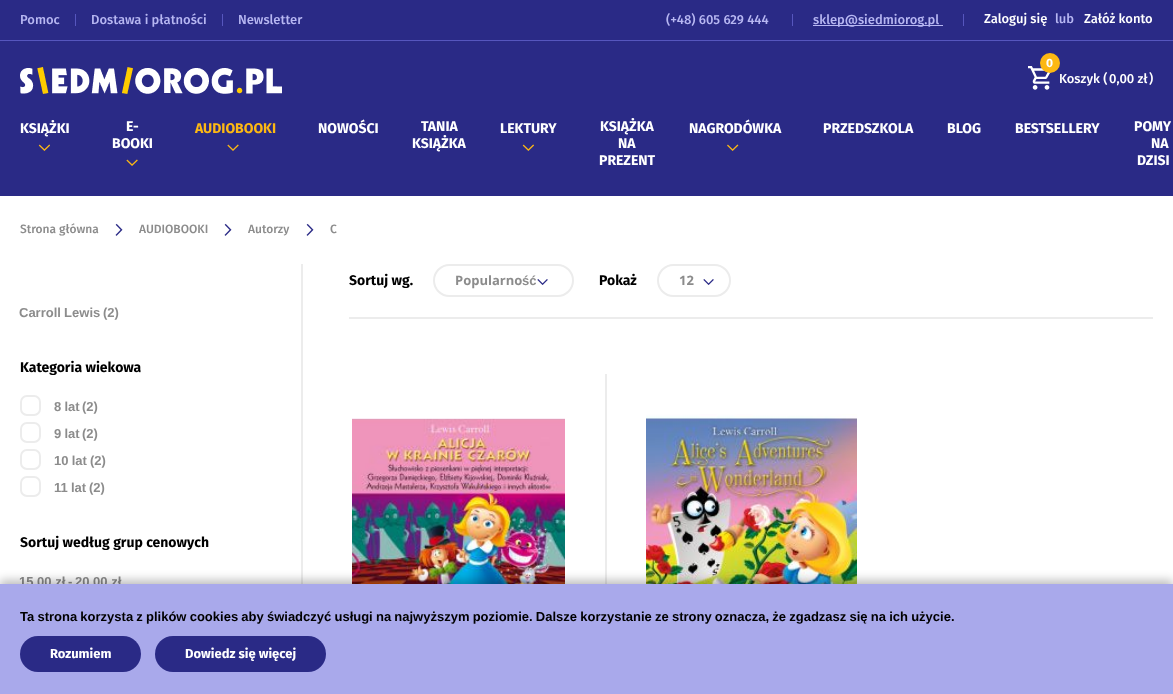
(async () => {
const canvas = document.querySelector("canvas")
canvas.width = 1173
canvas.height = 694
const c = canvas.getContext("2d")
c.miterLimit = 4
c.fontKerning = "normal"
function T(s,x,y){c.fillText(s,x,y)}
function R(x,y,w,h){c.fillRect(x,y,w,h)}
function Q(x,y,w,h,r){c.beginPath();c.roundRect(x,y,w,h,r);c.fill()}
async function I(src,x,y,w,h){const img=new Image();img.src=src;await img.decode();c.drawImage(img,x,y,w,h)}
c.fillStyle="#fff"
R(0,0,1173,694)
c.fillStyle="#2a2a86"
R(0,0,1173,196)
c.fillStyle="#5656be"
R(0,40,1173,1)
c.font="500 13px Fira Sans"
c.fillStyle="#b7b7f2"
T("Pomoc",20,24)
c.fillStyle="#5656be"
R(75,14,1,12)
c.fillStyle="#b7b7f2"
T("Dostawa i płatności",91,24)
c.fillStyle="#5656be"
R(222,14,1,12)
c.fillStyle="#b7b7f2"
T("Newsletter",238,24)
T("(+48) 605 629 444",666,24)
c.fillStyle="#5656be"
R(792,14,1,12)
c.fillStyle="#b7b7f2"
R(813,25,130,1)
T("sklep@siedmiorog.pl",813,24)
c.fillStyle="#5656be"
R(963,14,1,12)
c.fillStyle="#fff"
T("Zaloguj się",984,23)
c.fillStyle="#b7b7f2"
T("lub",1055,23)
c.fillStyle="#fff"
T("Załóż konto",1084,23)
await I("1.png",20,67,262,27)
await I("2.png",1028,66,23,24)
c.fillStyle="#fdb813"
c.beginPath()
c.arc(1050,63,10,0,7)
c.fill()
c.font="bold 12px Fira Sans"
c.fillStyle="#fff"
T("0",1046,67)
c.font="500 13px Fira Sans"
T("Koszyk (",1059,83)
T("0,00 zł",1109,83)
T(")",1149,83)
c.font="bold 14px Fira Sans"
T("KSIĄŻKI",20,133)
await I("3.png",38,144,12,7)
T("E-",126,131)
T("BOOKI",112,148)
await I("4.png",126,159,12,7)
c.fillStyle="#fdb813"
T("AUDIOBOOKI",195,133)
await I("5.png",227,144,12,7)
c.fillStyle="#fff"
T("NOWOŚCI",318,133)
T("TANIA",421,131)
T("KSIĄŻKA",412,148)
T("LEKTURY",500,133)
await I("6.png",522,144,12,7)
T("KSIĄŻKA",600,131)
T("NA",618,148)
T("PREZENT",599,165)
T("NAGRODÓWKA",689,133)
await I("7.png",727,144,12,7)
T("PRZEDSZKOLA",823,133)
T("BLOG",947,133)
T("BESTSELLERY",1015,133)
T("POMY",1134,131)
T("NA",1151,148)
T("DZISI",1137,165)
c.font="500 12px Fira Sans"
c.fillStyle="#8c8c8c"
T("Strona główna",20,233)
await I("8.png",115,223,8,13)
T("AUDIOBOOKI",139,233)
await I("8.png",224,223,8,13)
T("Autorzy",248,233)
await I("8.png",306,223,8,13)
T("C",330,233)
c.font="bold 14px Fira Sans"
c.fillStyle="#000"
T("Sortuj wg.",349,285)
await I("9.png",537,279,11,6)
c.beginPath()
c.roundRect(434,265,139,31,15.5)
c.strokeStyle="#ececec"
c.lineWidth=2
c.stroke()
c.font="bold 13px Open Sans"
c.fillStyle="#8c8c8c"
T("Popularno",455,285)
c.font="bold 13px Liberation Sans"
T("ść",522,285)
c.font="bold 14px Fira Sans"
c.fillStyle="#000"
T("Pokaż",599,285)
await I("9.png",703,279,11,6)
c.beginPath()
c.roundRect(658,265,72,31,15.5)
c.stroke()
c.font="bold 13px Open Sans"
c.fillStyle="#8c8c8c"
T("12",679,285)
c.fillStyle="#ececec"
R(349,317,804,2)
await I("10.png",352,418,213,166)
R(605,374,2,210)
await I("11.png",646,414,211,170)
R(301,264,2,320)
c.wordSpacing="-0.4px"
c.font="bold 13px Liberation Sans"
c.fillStyle="#8c8c8c"
T("Carroll Lewis",19,317)
c.wordSpacing="0px"
T("(2)",103,317)
c.font="bold 14px Fira Sans"
c.fillStyle="#000"
T("Kategoria wiekowa",20,372)
c.beginPath()
c.roundRect(21,396,19,19,6)
c.stroke()
c.wordSpacing="-0.4px"
c.font="bold 13px Liberation Sans"
c.fillStyle="#8c8c8c"
T("8 lat",54,411)
c.wordSpacing="0px"
T("(2)",82,411)
c.beginPath()
c.roundRect(21,423,19,19,6)
c.stroke()
c.wordSpacing="-0.4px"
T("9 lat",54,438)
c.wordSpacing="0px"
T("(2)",82,438)
c.beginPath()
c.roundRect(21,450,19,19,6)
c.stroke()
c.wordSpacing="-0.4px"
T("10 lat",54,465)
c.wordSpacing="0px"
T("(2)",90,465)
c.beginPath()
c.roundRect(21,477,19,19,6)
c.stroke()
c.wordSpacing="-0.4px"
T("11 lat",54,492)
c.wordSpacing="0px"
T("(2)",89,492)
c.font="bold 14px Fira Sans"
c.fillStyle="#000"
T("Sortuj według grup cenowych",20,547)
c.font="bold 13px Liberation Sans"
c.fillStyle="#8c8c8c"
T("15,00 zł",19,586)
T("-",68,586)
T("20,00 zł",75,586)
c.fillStyle="#00000040"
c.filter="blur(5px)"
c.beginPath()
c.rect(0,580,1173,110)
c.fill()
c.filter="none"
c.fillStyle="#a9a9eb"
R(0,584,1173,110)
c.wordSpacing="-0.4px"
c.fillStyle="#000"
T("Ta strona korzysta z plików cookies aby świadczyć usługi na najwyższym poziomie. Dalsze korzystanie ze strony oznacza, że zgadzasz się na ich użycie.",20,621)
c.fillStyle="#2a2a86"
Q(20,636,121,36,18)
c.wordSpacing="0px"
c.font="bold 13px Fira Sans"
c.fillStyle="#fff"
T("Rozumiem",50,658)
c.fillStyle="#2a2a86"
Q(155,636,171,36,18)
c.fillStyle="#fff"
T("Dowiedz się więcej",185,658)
})()
